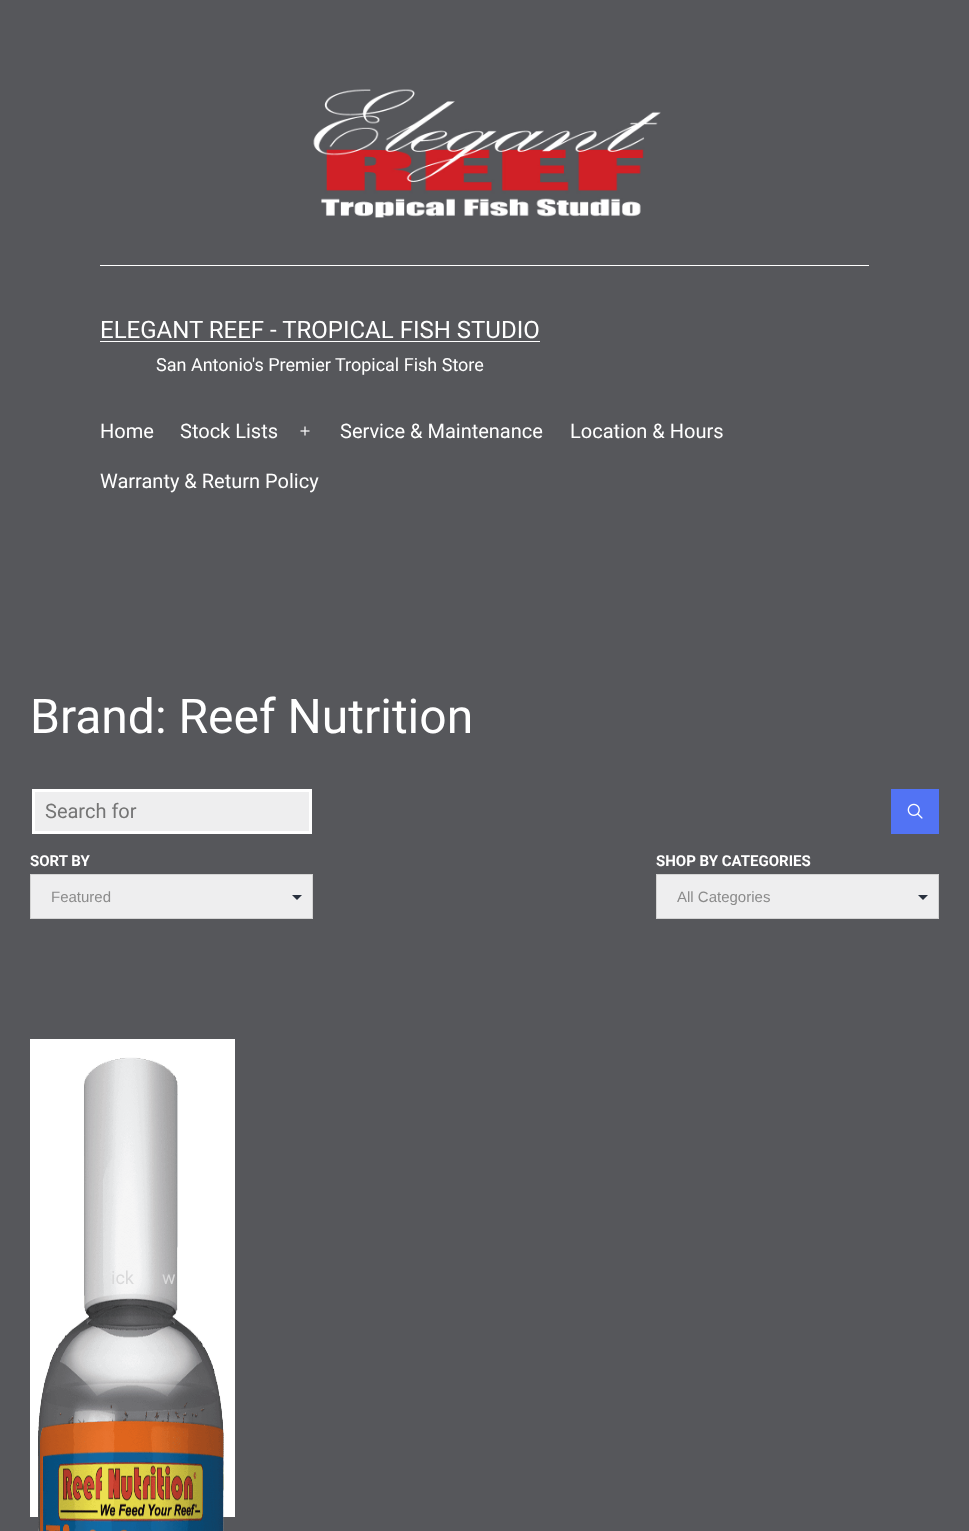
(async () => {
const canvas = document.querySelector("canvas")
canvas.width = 969
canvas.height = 1531
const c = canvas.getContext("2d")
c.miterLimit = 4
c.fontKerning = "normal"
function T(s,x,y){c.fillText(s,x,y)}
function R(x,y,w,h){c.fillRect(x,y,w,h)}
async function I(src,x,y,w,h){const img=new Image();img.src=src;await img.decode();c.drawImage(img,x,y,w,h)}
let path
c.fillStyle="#56575b"
R(0,0,969,1531)
c.fillStyle="#fff"
R(100,265,769,1)
await I("1.png",313,89,348,129)
c.font="24px Roboto"
T("ELEGANT REEF - TROPICAL FISH STUDIO",100,338)
R(100,341,440,1)
c.font="18px Roboto"
T("San Antonio's Premier Tropical Fish Store",156,371)
c.font="20px Roboto"
T("Home",100,438)
T("Stock Lists",180,438)
await I("2.png",300,426,10,10)
T("Service & Maintenance",340,438)
T("Location & Hours",570,438)
T("Warranty & Return Policy",100,488)
c.font="48px Roboto"
T("Brand: Reef Nutrition",30,733)
c.fillStyle="#eeeeef"
c.beginPath()
c.rect(33.5,790.5,277,42)
c.fill()
c.strokeStyle="#fff"
c.lineWidth=3
c.stroke()
c.font="20px Roboto"
c.fillStyle="#757575"
T("Search for",45,818)
c.fillStyle="#5273f4"
R(891,789,48,45)
await I("3.png",907,803,16,16)
c.font="bold 15px Roboto"
c.fillStyle="#fff"
T("SORT BY",30,866)
c.fillStyle="#eeeeef"
R(31,875,281,43)
c.fillStyle="#28303d"
path = new Path2D("M292 895h10l-5 5z")
c.fill(path)
c.strokeStyle="#d3d3d3"
c.lineWidth=1
c.strokeRect(30.5,874.5,282,44)
c.font="15px Liberation Sans"
c.fillStyle="#8b8b8b"
T("Featured",51,902)
c.font="bold 15px Roboto"
c.fillStyle="#fff"
T("SHOP BY CATEGORIES",656,866)
c.fillStyle="#eeeeef"
R(657,875,281,43)
c.fillStyle="#28303d"
path = new Path2D("M918 895h10l-5 5z")
c.fill(path)
c.strokeRect(656.5,874.5,282,44)
c.font="15px Liberation Sans"
c.fillStyle="#8b8b8b"
T("All Categories",677,902)
c.fillStyle="#fff"
R(30,1039,205,478)
await I("4.png",38,1057,186,474)
c.font="18px Roboto"
c.fillStyle="#d9d9da"
T("ick",111,1284)
T("w",162,1284)
})()
